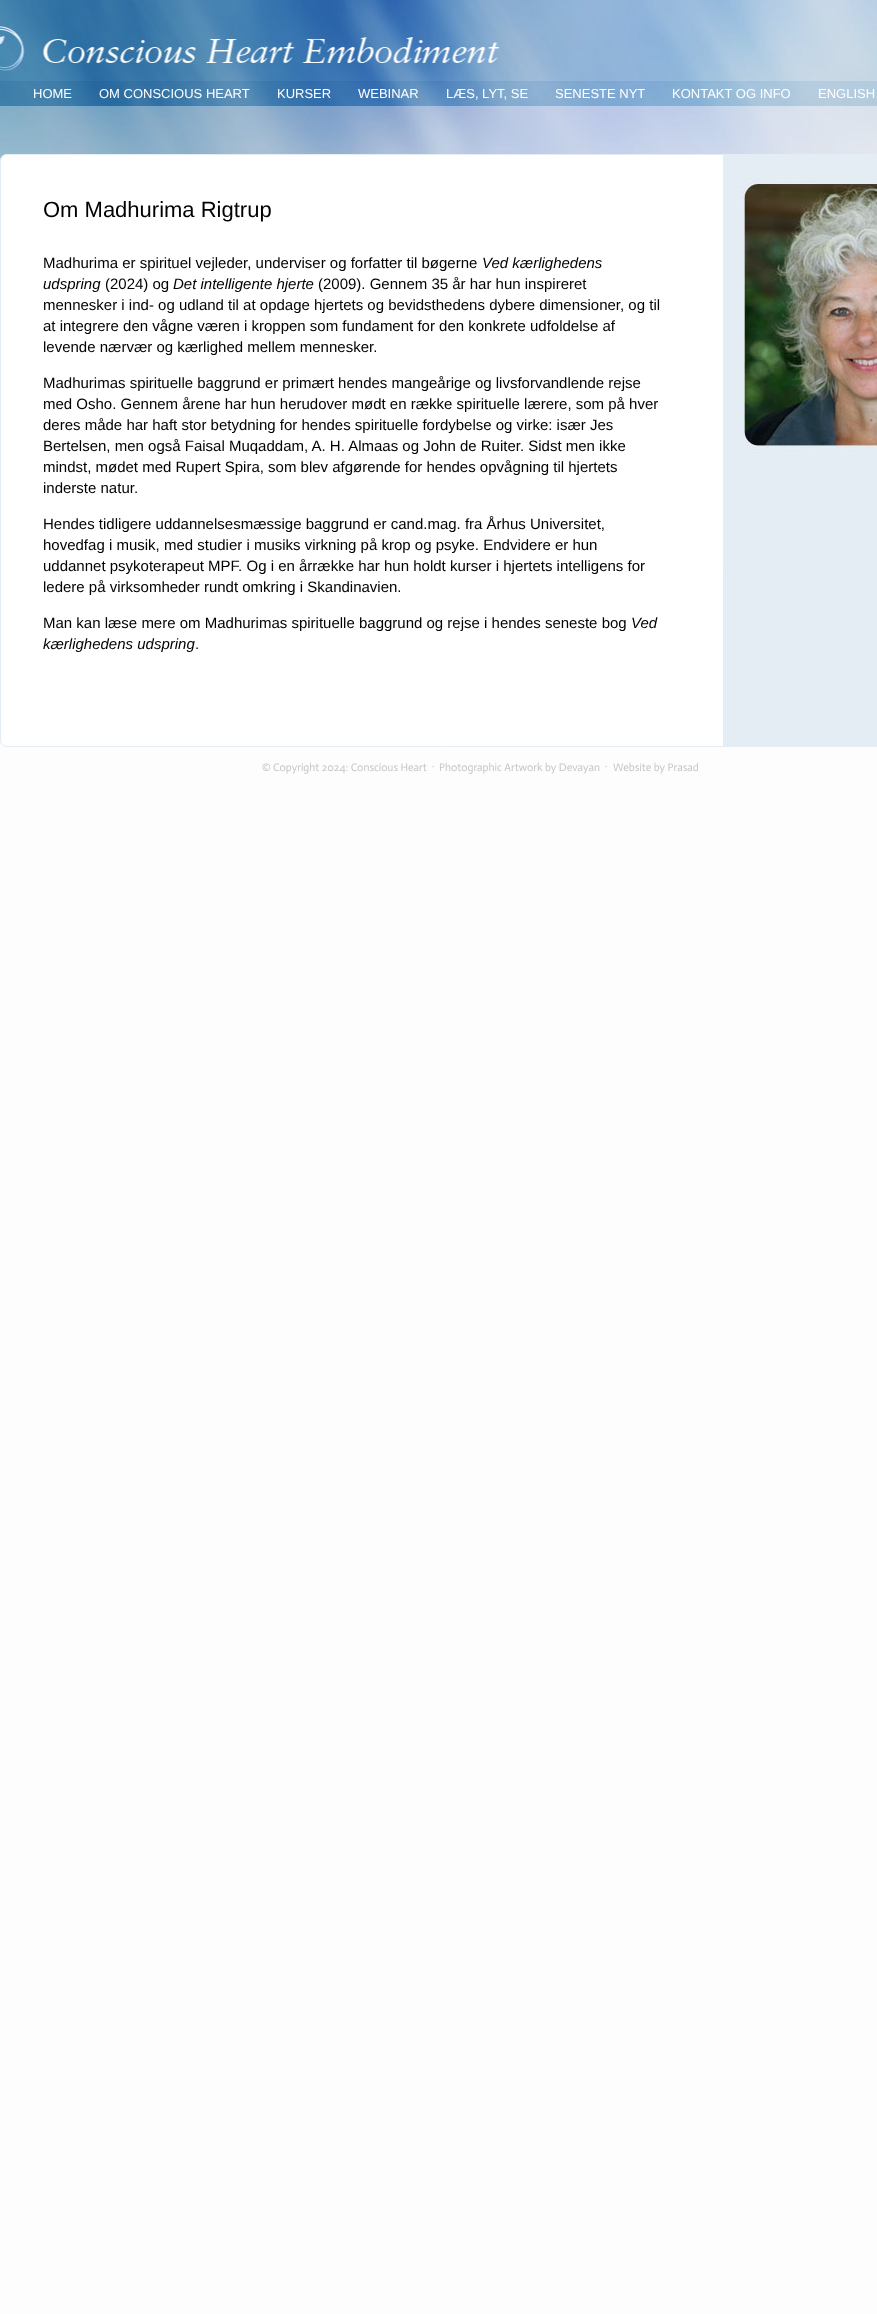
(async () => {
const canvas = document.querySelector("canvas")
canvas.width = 877
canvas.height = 2314
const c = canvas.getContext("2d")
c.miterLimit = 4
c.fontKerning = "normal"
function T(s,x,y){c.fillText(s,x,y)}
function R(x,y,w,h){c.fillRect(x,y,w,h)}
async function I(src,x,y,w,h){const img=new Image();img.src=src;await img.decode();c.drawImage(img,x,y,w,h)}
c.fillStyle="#fdfdfd"
R(0,0,877,2314)
await I("1.png",0,0,877,161)
c.font="13px Liberation Sans"
c.fillStyle="#fff"
T("HOME",33,98)
T("OM CONSCIOUS HEART",99,98)
T("KURSER",277,98)
T("WEBINAR",358,98)
T("LÆS, LYT, SE",446,98)
T("SENESTE NYT",555,98)
T("KONTAKT OG INFO",672,98)
T("ENGLISH",818,98)
await I("2.png",0,154,877,593)
c.beginPath()
c.roundRect(.5,154.5,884,592,6.5)
c.strokeStyle="#e4edf4"
c.stroke()
c.font="22px Liberation Sans"
c.fillStyle="#000"
T("Om Madhurima Rigtrup",43,217)
c.font="15px Liberation Sans"
T("Madhurima er spirituel vejleder, underviser og forfatter til bøgerne",43,268)
c.font="italic 15px Liberation Sans"
T("Ved kærlighedens",482,268)
T("udspring",43,289)
c.font="15px Liberation Sans"
T("(2024) og",105,289)
c.font="italic 15px Liberation Sans"
T("Det intelligente hjerte",173,289)
c.font="15px Liberation Sans"
T("(2009). Gennem 35 år har hun inspireret",318,289)
T("mennesker i ind- og udland til at opdage hjertets og bevidsthedens dybere dimensioner, og til",43,310)
T("at integrere den vågne væren i kroppen som fundament for den konkrete udfoldelse af",43,331)
T("levende nærvær og kærlighed mellem mennesker.",43,352)
T("Madhurimas spirituelle baggrund er primært hendes mangeårige og livsforvandlende rejse",43,388)
T("med Osho. Gennem årene har hun herudover mødt en række spirituelle lærere, som på hver",43,409)
T("deres måde har haft stor betydning for hendes spirituelle fordybelse og virke: især Jes",43,430)
T("Bertelsen, men også Faisal Muqaddam, A. H. Almaas og John de Ruiter. Sidst men ikke",43,451)
T("mindst, mødet med Rupert Spira, som blev afgørende for hendes opvågning til hjertets",43,472)
T("inderste natur.",43,493)
T("Hendes tidligere uddannelsesmæssige baggrund er cand.mag. fra Århus Universitet,",43,529)
T("hovedfag i musik, med studier i musiks virkning på krop og psyke. Endvidere er hun",43,550)
T("uddannet psykoterapeut MPF. Og i en årrække har hun holdt kurser i hjertets intelligens for",43,571)
T("ledere på virksomheder rundt omkring i Skandinavien.",43,592)
T("Man kan læse mere om Madhurimas spirituelle baggrund og rejse i hendes seneste bog",43,628)
c.font="italic 15px Liberation Sans"
T("Ved",631,628)
T("kærlighedens udspring",43,649)
c.font="15px Liberation Sans"
T(".",195,649)
c.fillStyle="#e4edf4"
R(723,155,4,420)
await I("3.png",739,179,138,272)
c.font="11px Actor"
c.fillStyle="#c6c6c6"
T("© Copyright 2024: Conscious Heart",262,771)
T("·",432,771)
T("Photographic Artwork by Devayan",439,771)
T("·",605,771)
T("Website by Prasad",613,771)
})()
